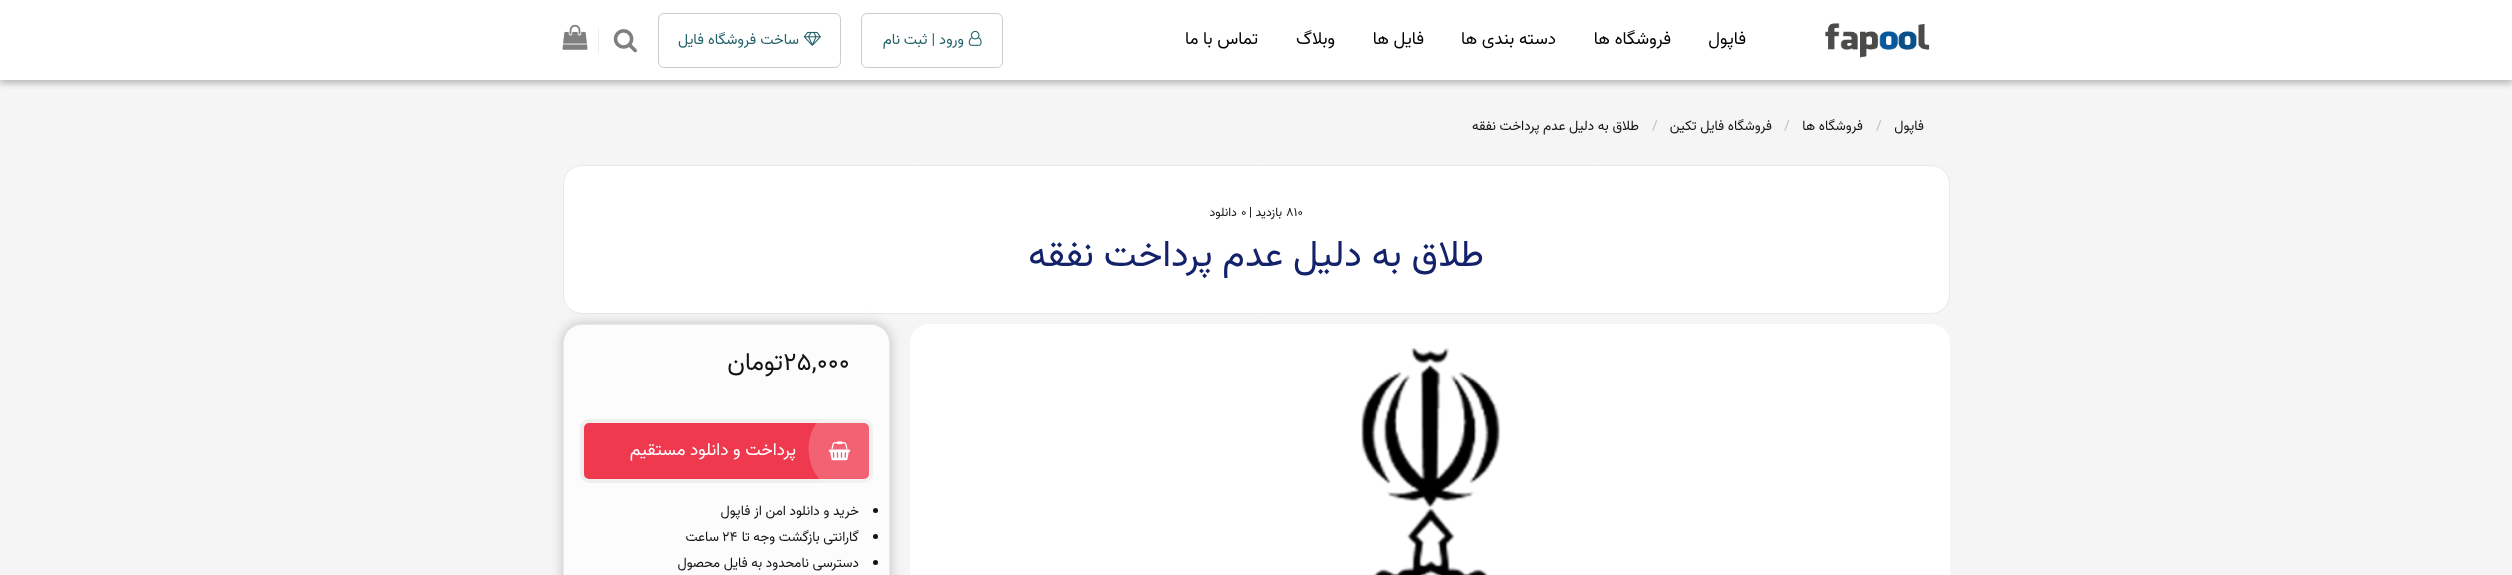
(async () => {
const canvas = document.querySelector("canvas")
canvas.width = 2512
canvas.height = 575
const c = canvas.getContext("2d")
c.miterLimit = 4
c.fontKerning = "normal"
function T(s,x,y){c.fillText(s,x,y)}
function R(x,y,w,h){c.fillRect(x,y,w,h)}
function Q(x,y,w,h,r){c.beginPath();c.roundRect(x,y,w,h,r);c.fill()}
async function I(src,x,y,w,h){const img=new Image();img.src=src;await img.decode();c.drawImage(img,x,y,w,h)}
c.fillStyle="#f5f5f5"
R(0,0,2512,575)
c.fillStyle="#fff"
R(0,0,2512,80)
c.save()
c.beginPath()
c.rect(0,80,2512,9)
c.clip()
c.fillStyle="#0000001f"
c.filter="blur(6px)"
c.beginPath()
c.rect(0,3,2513,80)
c.fill()
c.filter="none"
c.restore()
c.save()
c.beginPath()
c.rect(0,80,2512,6)
c.clip()
c.fillStyle="#00000029"
c.filter="blur(3px)"
c.beginPath()
c.rect(0,3,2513,80)
c.fill()
c.filter="none"
c.restore()
await I("1.png",1825,23,105,35)
c.direction="rtl"
c.font="17.5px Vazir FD"
c.fillStyle="#000"
T("فاپول",1746,44)
T("فروشگاه ها",1671,44)
T("دسته بندی ها",1556,44)
T("فایل ها",1424,44)
T("وبلاگ",1335,44)
T("تماس با ما",1258,44)
c.beginPath()
c.roundRect(861.5,13.5,141,54,5.5)
c.strokeStyle="#ccc"
c.stroke()
await I("2.png",968,30,14,16)
c.font="15px Vazir FD"
c.fillStyle="#24636b"
T("ورود | ثبت",964,44)
T("نام",900,44)
c.beginPath()
c.roundRect(658.5,13.5,182,54,5.5)
c.stroke()
await I("3.png",803,31,18,15)
T("ساخت فروشگاه فایل",799,44)
c.fillStyle="#eee"
R(598,28,1,25)
await I("4.png",613,29,24,24)
await I("5.png",562,24,26,26)
c.font="13.75px Vazir FD"
c.fillStyle="#131314"
T("فاپول",1924,130)
c.direction="ltr"
c.fillStyle="#bbb"
T("/",1876,130)
c.direction="rtl"
c.fillStyle="#131314"
T("فروشگاه ها",1863,130)
c.direction="ltr"
c.fillStyle="#bbb"
T("/",1784,130)
c.direction="rtl"
c.fillStyle="#131314"
T("فروشگاه فایل تکین",1772,130)
c.direction="ltr"
c.fillStyle="#bbb"
T("/",1652,130)
c.direction="rtl"
c.fillStyle="#131314"
T("طلاق به دلیل عدم پرداخت نفقه",1639,130)
c.fillStyle="#fff"
c.beginPath()
c.roundRect(563.5,165.5,1386,148,18.5)
c.fill()
c.strokeStyle="#e9e9e9"
c.stroke()
c.direction="ltr"
c.font="12.5px Vazir FD"
c.fillStyle="#131314"
T("810",1286,216)
c.direction="rtl"
T("بازدید |",1282,216)
c.direction="ltr"
T("0",1241,216)
c.direction="rtl"
T("دانلود",1237,216)
c.font="37.5px Vazir FD"
c.fillStyle="#13226a"
T("طلاق به دلیل عدم پرداخت نفقه",1484,266)
c.fillStyle="#fff"
Q(910,324,1040,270,19)
await I("6.png",1361,348,140,227)
c.fillStyle="#c2bcbc"
c.filter="blur(6px)"
c.beginPath()
c.roundRect(563,324,327,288,19)
c.fill()
c.filter="none"
c.fillStyle="#fcfcfc"
c.beginPath()
c.roundRect(563.5,324.5,326,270,18.5)
c.fill()
c.stroke()
c.direction="ltr"
c.font="25px Vazir FD"
c.fillStyle="#131314"
T("25,000",783,370)
c.direction="rtl"
T("تومان",783,370)
c.beginPath()
c.roundRect(582,421,289,60,7)
c.strokeStyle="#f1eeee"
c.lineWidth=4
c.stroke()
c.fillStyle="#ef394e"
Q(584,423,285,56,5)
c.fillStyle="#ffffff36"
c.beginPath()
c.ellipse(845.5,449,37,42.5,0,0,7)
c.fill()
await I("7.png",828,441,23,20)
c.font="17.5px Vazir FD"
c.fillStyle="#fff"
T("پرداخت و دانلود مستقیم",796,455)
c.fillStyle="#131313"
c.beginPath()
c.arc(875.5,510.5,2.5,0,7)
c.fill()
c.font="13.75px Vazir FD"
c.fillStyle="#131314"
T("خرید و دانلود امن از فاپول",859,515)
c.fillStyle="#131313"
c.beginPath()
c.arc(875.5,536.5,2.5,0,7)
c.fill()
c.fillStyle="#131314"
T("گارانتی بازگشت وجه تا",859,541)
c.direction="ltr"
T("24",722,541)
c.direction="rtl"
T("ساعت",719,541)
c.fillStyle="#131313"
c.beginPath()
c.arc(875.5,562.5,2.5,0,7)
c.fill()
c.fillStyle="#131314"
T("دسترسی نامحدود به فایل محصول",859,567)
})()
